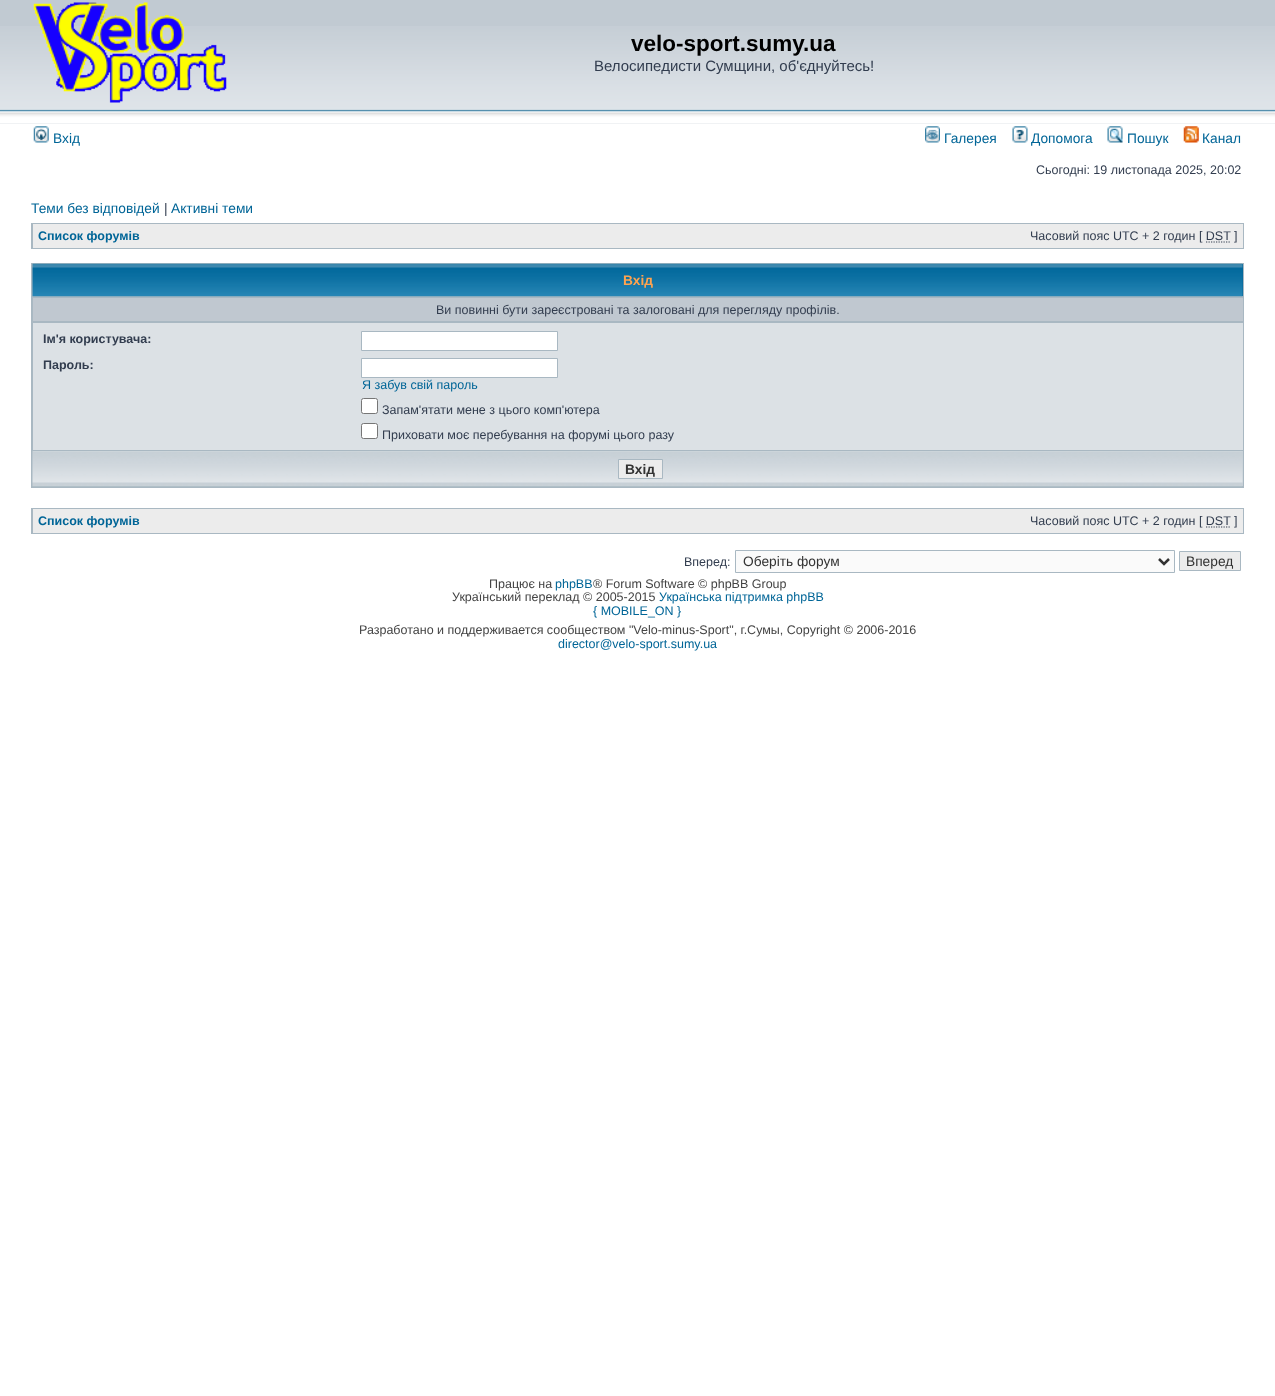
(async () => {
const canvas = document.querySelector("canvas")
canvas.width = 1275
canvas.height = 1396
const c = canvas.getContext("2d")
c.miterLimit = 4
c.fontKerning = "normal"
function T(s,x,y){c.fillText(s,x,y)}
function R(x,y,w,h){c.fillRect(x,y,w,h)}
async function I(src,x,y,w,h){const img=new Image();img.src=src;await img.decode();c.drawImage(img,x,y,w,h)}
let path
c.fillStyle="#fff"
R(0,0,1275,1396)
c.fillStyle="#c1cad2"
R(0,0,1275,124)
await I("1.png",0,26,1275,98)
await I("2.png",33,2,194,101)
c.font="bold 22.5px Liberation Sans"
c.fillStyle="#000"
T("velo-sport.sumy.ua",631,51)
c.font="15px Liberation Sans"
c.fillStyle="#323d4f"
T("Велосипедисти Сумщини, об'єднуйтесь!",594,71)
await I("3.png",33,126,16,17)
c.font="13.75px Liberation Sans"
c.fillStyle="#006597"
T("Вхід",53,143)
await I("4.png",925,126,15,17)
T("Галерея",944,143)
await I("5.png",1012,126,16,17)
T("Допомога",1031,143)
await I("6.png",1107,126,16,17)
T("Пошук",1127,143)
await I("7.png",1183,126,16,17)
T("Канал",1202,143)
c.font="12.5px Liberation Sans"
c.fillStyle="#323d4f"
T("Сьогодні: 19 листопада 2025, 20:02",1036,174)
c.font="13.75px Liberation Sans"
c.fillStyle="#006597"
T("Теми без відповідей",31,213)
c.fillStyle="#323d4f"
T("|",164,213)
c.fillStyle="#006597"
T("Активні теми",171,213)
c.fillStyle="#a9b8c2"
R(31,223,1213,26)
c.fillStyle="#ececec"
R(33,224,1210,24)
c.font="bold 12.5px Liberation Sans"
c.fillStyle="#006597"
T("Список форумів",38,240)
c.font="12.5px Liberation Sans"
c.fillStyle="#323d4f"
T("Часовий пояс UTC + 2 годин [ DST ]",1030,240)
path = new Path2D("M1206 242h24.5")
c.strokeStyle="#323d4f"
c.lineWidth=1.2
c.setLineDash([1.25,1.25])
c.stroke(path)
c.fillStyle="#a9b8c2"
R(31,263,1213,225)
c.fillStyle="#069"
R(1242,264,1,32)
await I("8.png",32,263,1211,34)
c.font="bold 13.75px Liberation Sans"
c.fillStyle="#ffa34f"
T("Вхід",623,285)
c.fillStyle="#c0c8d0"
R(33,298,1210,23)
c.font="12.5px Liberation Sans"
c.fillStyle="#323d4f"
T("Ви повинні бути зареєстровані та залоговані для перегляду профілів.",436,314)
c.fillStyle="#dce1e5"
R(33,323,1210,127)
c.font="bold 12.5px Liberation Sans"
c.fillStyle="#323d4f"
T("Ім'я користувача:",43,343)
c.fillStyle="#fff"
c.beginPath()
c.rect(361.5,331.5,196,19)
c.fill()
c.strokeStyle="#a9b8c2"
c.lineWidth=1
c.setLineDash([])
c.stroke()
c.fillStyle="#323d4f"
T("Пароль:",43,369)
c.fillStyle="#fff"
c.beginPath()
c.rect(361.5,358.5,196,19)
c.fill()
c.stroke()
c.font="12.5px Liberation Sans"
c.fillStyle="#006597"
T("Я забув свій пароль",362,389)
c.fillStyle="#fff"
c.beginPath()
c.roundRect(361.5,398.5,16,15,2)
c.fill()
c.strokeStyle="#767676"
c.stroke()
c.fillStyle="#323d4f"
T("Запам'ятати мене з цього комп'ютера",382,414)
c.fillStyle="#fff"
c.beginPath()
c.roundRect(361.5,423.5,16,15,2)
c.fill()
c.stroke()
c.fillStyle="#323d4f"
T("Приховати моє перебування на форумі цього разу",382,439)
c.fillStyle="#c7d0d7"
R(33,451,1210,35)
await I("9.png",32,451,1211,36)
c.fillStyle="#ececec"
c.beginPath()
c.rect(618.5,459.5,44,19)
c.fill()
c.strokeStyle="#a9b8c2"
c.stroke()
c.font="bold 13.75px Liberation Sans"
c.fillStyle="#333"
T("Вхід",625,474)
c.fillStyle="#a9b8c2"
R(31,508,1213,26)
c.fillStyle="#ececec"
R(33,509,1210,24)
c.font="bold 12.5px Liberation Sans"
c.fillStyle="#006597"
T("Список форумів",38,525)
c.font="12.5px Liberation Sans"
c.fillStyle="#323d4f"
T("Часовий пояс UTC + 2 годин [ DST ]",1030,525)
path = new Path2D("M1206 527h24.5")
c.strokeStyle="#323d4f"
c.lineWidth=1.2
c.setLineDash([1.25,1.25])
c.stroke(path)
T("Вперед:",684,566)
c.fillStyle="#fafafa"
c.beginPath()
c.rect(735.5,550.5,439,22)
c.fill()
c.strokeStyle="#a9b8c2"
c.lineWidth=1
c.setLineDash([])
c.stroke()
path = new Path2D("M1159 559l5 5l5-5")
c.strokeStyle="#333"
c.lineWidth=2.5
c.stroke(path)
c.font="13.75px Liberation Sans"
c.fillStyle="#333"
T("Оберіть форум",743,566)
c.fillStyle="#ececec"
c.beginPath()
c.rect(1179.5,551.5,61,19)
c.fill()
c.strokeStyle="#a9b8c2"
c.lineWidth=1
c.stroke()
c.fillStyle="#333"
T("Вперед",1186,566)
c.font="12.5px Liberation Sans"
c.fillStyle="#444"
T("Працює на",489,588)
c.fillStyle="#006597"
T("phpBB",555,588)
c.fillStyle="#444"
T("® Forum Software © phpBB Group",593,588)
T("Український переклад © 2005-2015",452,601)
c.fillStyle="#006597"
T("Українська підтримка phpBB",659,601)
T("{ MOBILE_ON }",593,615)
c.fillStyle="#444"
T("Разработано и поддерживается сообществом \"Velo-minus-Sport\", г.Сумы, Copyright © 2006-2016",359,634)
c.fillStyle="#006597"
T("director@velo-sport.sumy.ua",558,648)
})()
